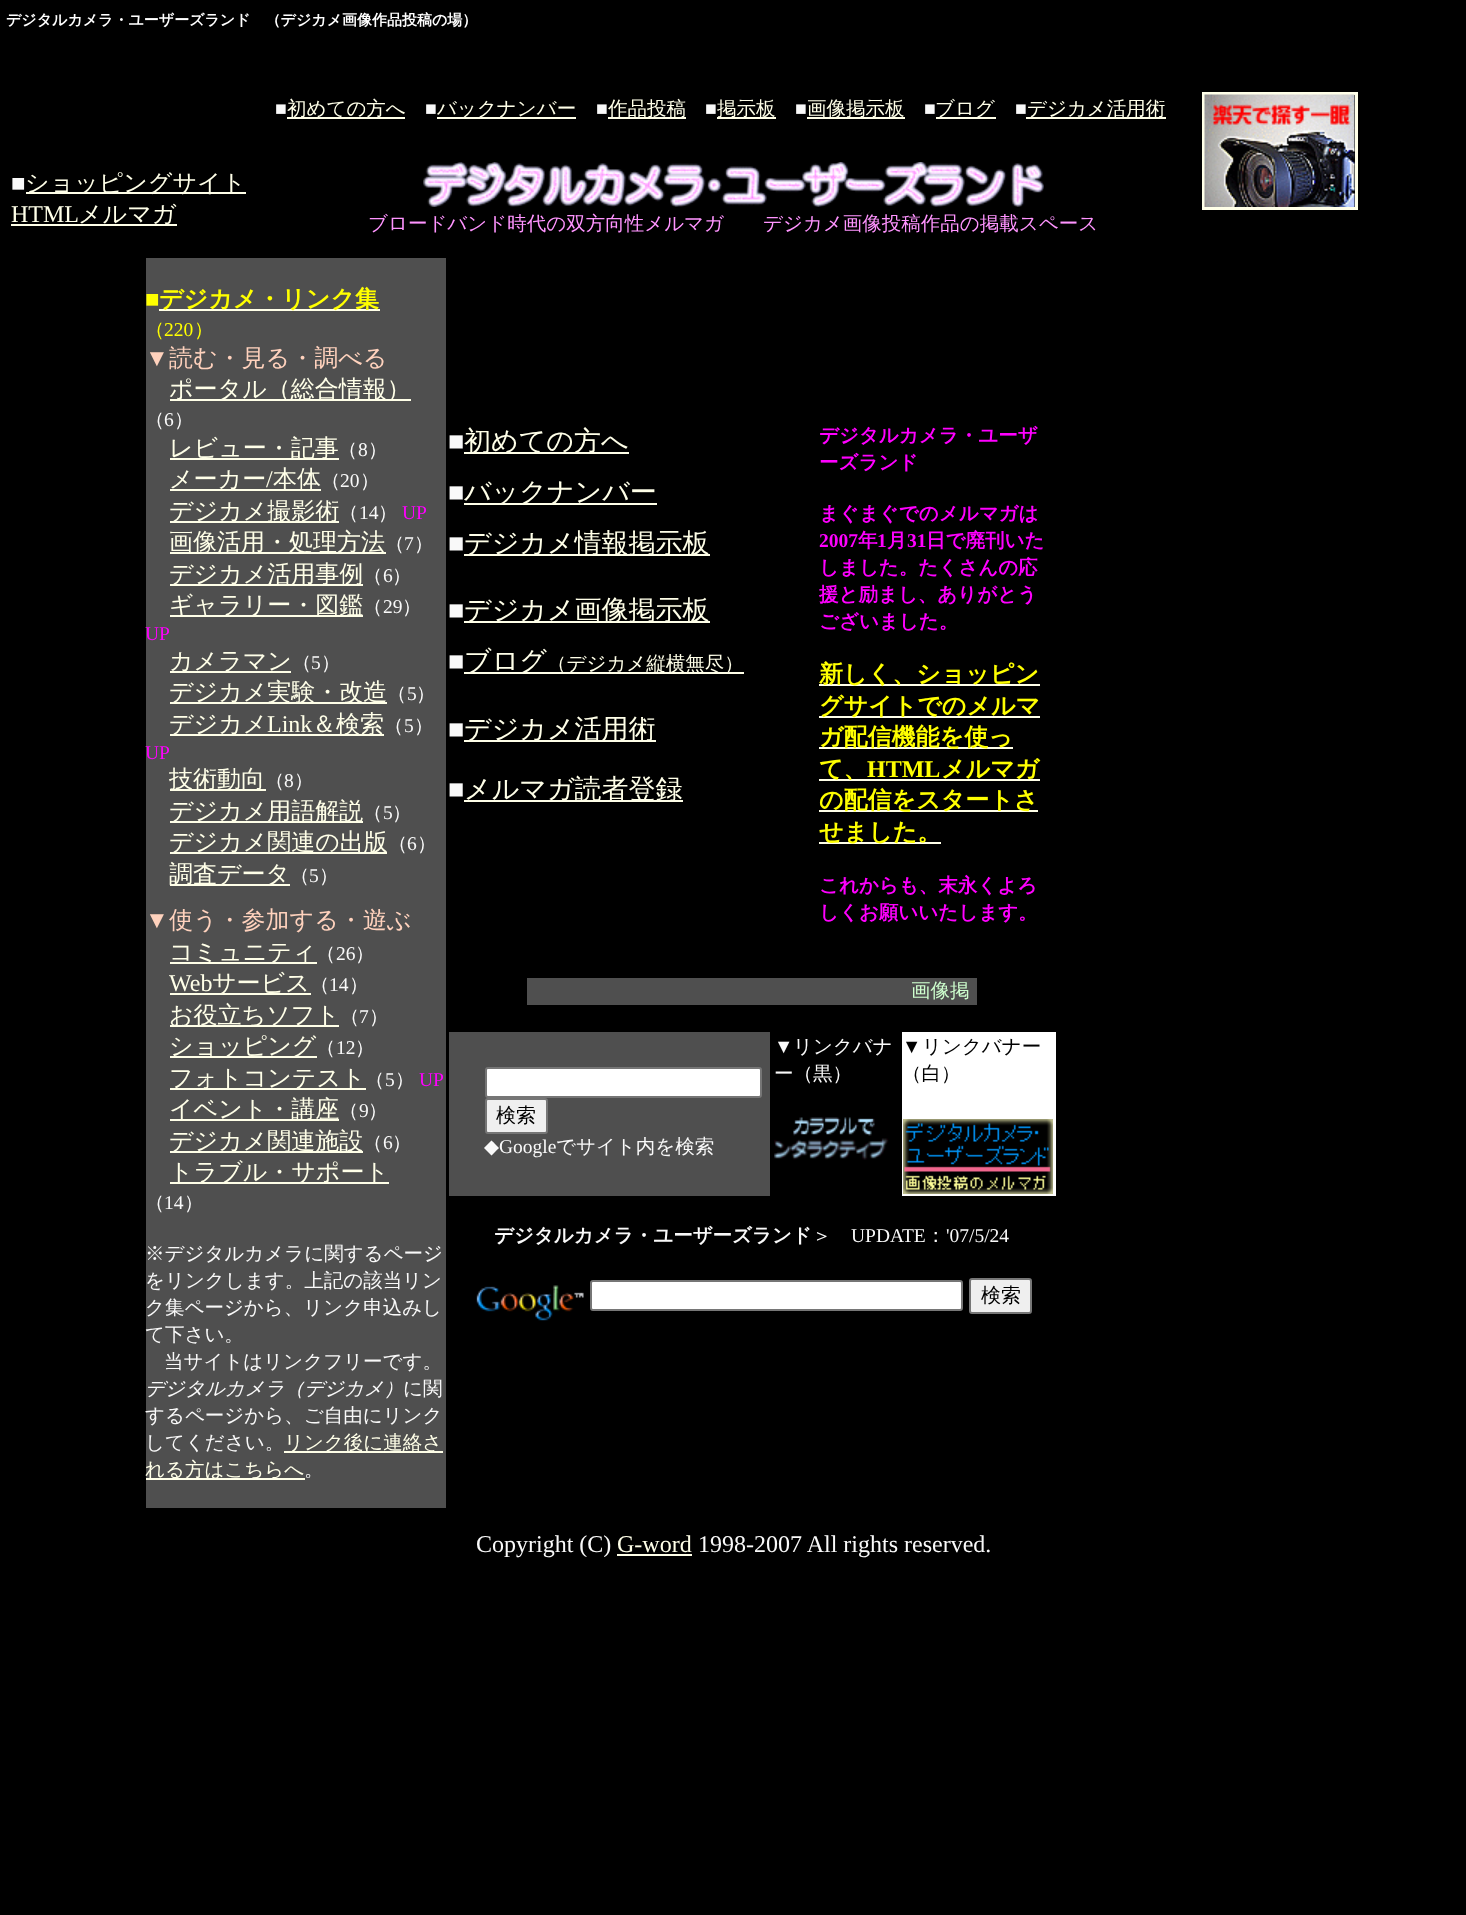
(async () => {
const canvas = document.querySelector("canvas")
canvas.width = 1466
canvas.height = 1915
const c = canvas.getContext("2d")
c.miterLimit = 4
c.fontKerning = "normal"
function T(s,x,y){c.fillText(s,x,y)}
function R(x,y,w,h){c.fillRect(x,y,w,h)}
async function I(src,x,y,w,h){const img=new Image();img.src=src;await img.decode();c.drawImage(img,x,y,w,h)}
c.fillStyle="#000"
R(0,0,1466,1915)
c.font="bold 15px WenQuanYi Zen Hei"
c.fillStyle="#fff"
T("デジタルカメラ・ユーザーズランド　（デジカメ画像作品投稿の場）",6,25)
c.font="19.5px Liberation Serif"
c.fillStyle="#f9f9f9"
T("■",275,115)
c.fillStyle="#ffffe8"
R(287,117,118,2)
c.font="500 19.5px WenQuanYi Zen Hei"
T("初めての方へ",287,115)
c.font="19.5px Liberation Serif"
c.fillStyle="#f9f9f9"
T("■",425,115)
c.fillStyle="#ffffe8"
R(437,117,139,2)
c.font="500 19.5px WenQuanYi Zen Hei"
T("バックナンバー",437,115)
c.font="19.5px Liberation Serif"
c.fillStyle="#f9f9f9"
T("■",596,115)
c.fillStyle="#ffffe8"
R(608,117,78,2)
c.font="500 19.5px WenQuanYi Zen Hei"
T("作品投稿",608,115)
c.font="19.5px Liberation Serif"
c.fillStyle="#f9f9f9"
T("■",705,115)
c.fillStyle="#ffffe8"
R(717,117,59,2)
c.font="500 19.5px WenQuanYi Zen Hei"
T("掲示板",717,115)
c.font="19.5px Liberation Serif"
c.fillStyle="#f9f9f9"
T("■",795,115)
c.fillStyle="#ffffe8"
R(807,117,98,2)
c.font="500 19.5px WenQuanYi Zen Hei"
T("画像掲示板",807,115)
c.font="19.5px Liberation Serif"
c.fillStyle="#f9f9f9"
T("■",924,115)
c.fillStyle="#ffffe8"
R(936,117,60,2)
c.font="500 19.5px WenQuanYi Zen Hei"
T("ブログ",935,115)
c.font="19.5px Liberation Serif"
c.fillStyle="#f9f9f9"
T("■",1015,115)
c.fillStyle="#ffffe8"
R(1026,117,140,2)
c.font="500 19.5px WenQuanYi Zen Hei"
T("デジカメ活用術",1027,115)
c.strokeStyle="#ffffe8"
c.lineWidth=3
c.strokeRect(1203.5,93.5,153,115)
await I("1.png",1204,94,151,113)
c.font="24px Liberation Serif"
c.fillStyle="#f9f9f9"
T("■",11,191)
c.fillStyle="#ffffe8"
R(26,192,220,2)
c.font="500 24px WenQuanYi Zen Hei"
T("ショッピングサイト",25,191)
c.font="24px Liberation Serif"
T("HTML",11,222)
R(11,224,166,2)
c.font="500 24px WenQuanYi Zen Hei"
T("メルマガ",78,222)
await I("2.png",423,162,621,45)
c.font="500 19.5px WenQuanYi Zen Hei"
c.fillStyle="#ff94ff"
T("ブロードバンド時代の双方向性メルマガ　　デジカメ画像投稿作品の掲載スペース",368,230)
c.fillStyle="#4f4f4f"
R(146,258,300,1250)
c.font="bold 24px Liberation Serif"
c.fillStyle="#ff0"
T("■",145,307)
c.fillStyle="#ffffe8"
R(159,309,221,2)
c.font="bold 24px WenQuanYi Zen Hei"
c.fillStyle="#ff0"
T("デジカメ・リンク集",159,307)
c.font="500 19.5px WenQuanYi Zen Hei"
T("（",145,336)
c.font="19.5px Liberation Serif"
T("220",164,336)
c.font="500 19.5px WenQuanYi Zen Hei"
T("）",194,336)
c.font="24px Liberation Serif"
c.fillStyle="#ffd2bd"
T("▼",145,366)
c.font="500 24px WenQuanYi Zen Hei"
T("読む・見る・調べる",169,366)
c.fillStyle="#ffffe8"
R(170,399,241,2)
T("ポータル（総合情報）",169,397)
c.font="500 19.5px WenQuanYi Zen Hei"
c.fillStyle="#f9f9f9"
T("（",145,426)
c.font="19.5px Liberation Serif"
T("6",164,426)
c.font="500 19.5px WenQuanYi Zen Hei"
T("）",174,426)
c.fillStyle="#ffffe8"
R(170,458,169,2)
c.font="500 24px WenQuanYi Zen Hei"
T("レビュー・記事",169,456)
c.font="500 19.5px WenQuanYi Zen Hei"
c.fillStyle="#f9f9f9"
T("（",338,456)
c.font="19.5px Liberation Serif"
T("8",358,456)
c.font="500 19.5px WenQuanYi Zen Hei"
T("）",368,456)
c.fillStyle="#ffffe8"
R(170,489,151,2)
c.font="500 24px WenQuanYi Zen Hei"
T("メーカー",169,487)
c.font="24px Liberation Serif"
T("/",266,487)
c.font="500 24px WenQuanYi Zen Hei"
T("本体",273,487)
c.font="500 19.5px WenQuanYi Zen Hei"
c.fillStyle="#f9f9f9"
T("（",321,487)
c.font="19.5px Liberation Serif"
T("20",340,487)
c.font="500 19.5px WenQuanYi Zen Hei"
T("）",360,487)
c.fillStyle="#ffffe8"
R(170,521,169,2)
c.font="500 24px WenQuanYi Zen Hei"
T("デジカメ撮影術",169,519)
c.font="500 19.5px WenQuanYi Zen Hei"
c.fillStyle="#f9f9f9"
T("（",339,519)
c.font="19.5px Liberation Serif"
T("14",359,519)
c.font="500 19.5px WenQuanYi Zen Hei"
T("）",378,519)
c.font="19.5px Liberation Serif"
c.fillStyle="#f0f"
T("UP",402,519)
c.fillStyle="#ffffe8"
R(170,552,216,2)
c.font="500 24px WenQuanYi Zen Hei"
T("画像活用・処理方法",169,550)
c.font="500 19.5px WenQuanYi Zen Hei"
c.fillStyle="#f9f9f9"
T("（",385,550)
c.font="19.5px Liberation Serif"
T("7",404,550)
c.font="500 19.5px WenQuanYi Zen Hei"
T("）",414,550)
c.fillStyle="#ffffe8"
R(170,584,193,2)
c.font="500 24px WenQuanYi Zen Hei"
T("デジカメ活用事例",169,582)
c.font="500 19.5px WenQuanYi Zen Hei"
c.fillStyle="#f9f9f9"
T("（",363,582)
c.font="19.5px Liberation Serif"
T("6",383,582)
c.font="500 19.5px WenQuanYi Zen Hei"
T("）",392,582)
c.fillStyle="#ffffe8"
R(170,615,193,2)
c.font="500 24px WenQuanYi Zen Hei"
T("ギャラリー・図鑑",169,613)
c.font="500 19.5px WenQuanYi Zen Hei"
c.fillStyle="#f9f9f9"
T("（",363,613)
c.font="19.5px Liberation Serif"
T("29",383,613)
c.font="500 19.5px WenQuanYi Zen Hei"
T("）",402,613)
c.font="19.5px Liberation Serif"
c.fillStyle="#f0f"
T("UP",145,640)
c.fillStyle="#ffffe8"
R(170,671,121,2)
c.font="500 24px WenQuanYi Zen Hei"
T("カメラマン",169,669)
c.font="500 19.5px WenQuanYi Zen Hei"
c.fillStyle="#f9f9f9"
T("（",292,669)
c.font="19.5px Liberation Serif"
T("5",311,669)
c.font="500 19.5px WenQuanYi Zen Hei"
T("）",321,669)
c.fillStyle="#ffffe8"
R(170,702,217,2)
c.font="500 24px WenQuanYi Zen Hei"
T("デジカメ実験・改造",169,700)
c.font="500 19.5px WenQuanYi Zen Hei"
c.fillStyle="#f9f9f9"
T("（",387,700)
c.font="19.5px Liberation Serif"
T("5",407,700)
c.font="500 19.5px WenQuanYi Zen Hei"
T("）",416,700)
c.fillStyle="#ffffe8"
R(170,734,214,2)
c.font="500 24px WenQuanYi Zen Hei"
T("デジカメ",169,732)
c.font="24px Liberation Serif"
T("Link",267,732)
c.font="500 24px WenQuanYi Zen Hei"
T("＆検索",312,732)
c.font="500 19.5px WenQuanYi Zen Hei"
c.fillStyle="#f9f9f9"
T("（",384,732)
c.font="19.5px Liberation Serif"
T("5",404,732)
c.font="500 19.5px WenQuanYi Zen Hei"
T("）",414,732)
c.font="19.5px Liberation Serif"
c.fillStyle="#f0f"
T("UP",145,759)
c.fillStyle="#ffffe8"
R(170,789,96,2)
c.font="500 24px WenQuanYi Zen Hei"
T("技術動向",169,787)
c.font="500 19.5px WenQuanYi Zen Hei"
c.fillStyle="#f9f9f9"
T("（",265,787)
c.font="19.5px Liberation Serif"
T("8",284,787)
c.font="500 19.5px WenQuanYi Zen Hei"
T("）",294,787)
c.fillStyle="#ffffe8"
R(170,821,193,2)
c.font="500 24px WenQuanYi Zen Hei"
T("デジカメ用語解説",169,819)
c.font="500 19.5px WenQuanYi Zen Hei"
c.fillStyle="#f9f9f9"
T("（",363,819)
c.font="19.5px Liberation Serif"
T("5",383,819)
c.font="500 19.5px WenQuanYi Zen Hei"
T("）",392,819)
c.fillStyle="#ffffe8"
R(170,852,217,2)
c.font="500 24px WenQuanYi Zen Hei"
T("デジカメ関連の出版",169,850)
c.font="500 19.5px WenQuanYi Zen Hei"
c.fillStyle="#f9f9f9"
T("（",388,850)
c.font="19.5px Liberation Serif"
T("6",407,850)
c.font="500 19.5px WenQuanYi Zen Hei"
T("）",417,850)
c.fillStyle="#ffffe8"
R(170,884,120,2)
c.font="500 24px WenQuanYi Zen Hei"
T("調査データ",169,882)
c.font="500 19.5px WenQuanYi Zen Hei"
c.fillStyle="#f9f9f9"
T("（",290,882)
c.font="19.5px Liberation Serif"
T("5",309,882)
c.font="500 19.5px WenQuanYi Zen Hei"
T("）",319,882)
c.font="24px Liberation Serif"
c.fillStyle="#ffd2bd"
T("▼",145,928)
c.font="500 24px WenQuanYi Zen Hei"
T("使う・参加する・遊ぶ",169,928)
c.fillStyle="#ffffe8"
R(170,962,147,2)
T("コミュニティ",169,960)
c.font="500 19.5px WenQuanYi Zen Hei"
c.fillStyle="#f9f9f9"
T("（",316,960)
c.font="19.5px Liberation Serif"
T("26",336,960)
c.font="500 19.5px WenQuanYi Zen Hei"
T("）",355,960)
c.font="24px Liberation Serif"
c.fillStyle="#ffffe8"
T("Web",169,991)
R(170,993,141,2)
c.font="500 24px WenQuanYi Zen Hei"
T("サービス",212,991)
c.font="500 19.5px WenQuanYi Zen Hei"
c.fillStyle="#f9f9f9"
T("（",310,991)
c.font="19.5px Liberation Serif"
T("14",329,991)
c.font="500 19.5px WenQuanYi Zen Hei"
T("）",349,991)
c.fillStyle="#ffffe8"
R(170,1025,169,2)
c.font="500 24px WenQuanYi Zen Hei"
T("お役立ちソフト",169,1023)
c.font="500 19.5px WenQuanYi Zen Hei"
c.fillStyle="#f9f9f9"
T("（",340,1023)
c.font="19.5px Liberation Serif"
T("7",359,1023)
c.font="500 19.5px WenQuanYi Zen Hei"
T("）",369,1023)
c.fillStyle="#ffffe8"
R(170,1056,147,2)
c.font="500 24px WenQuanYi Zen Hei"
T("ショッピング",169,1054)
c.font="500 19.5px WenQuanYi Zen Hei"
c.fillStyle="#f9f9f9"
T("（",316,1054)
c.font="19.5px Liberation Serif"
T("12",336,1054)
c.font="500 19.5px WenQuanYi Zen Hei"
T("）",355,1054)
c.fillStyle="#ffffe8"
R(170,1088,196,2)
c.font="500 24px WenQuanYi Zen Hei"
T("フォトコンテスト",169,1086)
c.font="500 19.5px WenQuanYi Zen Hei"
c.fillStyle="#f9f9f9"
T("（",365,1086)
c.font="19.5px Liberation Serif"
T("5",385,1086)
c.font="500 19.5px WenQuanYi Zen Hei"
T("）",395,1086)
c.font="19.5px Liberation Serif"
c.fillStyle="#f0f"
T("UP",419,1086)
c.fillStyle="#ffffe8"
R(170,1119,169,2)
c.font="500 24px WenQuanYi Zen Hei"
T("イベント・講座",169,1117)
c.font="500 19.5px WenQuanYi Zen Hei"
c.fillStyle="#f9f9f9"
T("（",339,1117)
c.font="19.5px Liberation Serif"
T("9",359,1117)
c.font="500 19.5px WenQuanYi Zen Hei"
T("）",368,1117)
c.fillStyle="#ffffe8"
R(170,1151,193,2)
c.font="500 24px WenQuanYi Zen Hei"
T("デジカメ関連施設",169,1149)
c.font="500 19.5px WenQuanYi Zen Hei"
c.fillStyle="#f9f9f9"
T("（",363,1149)
c.font="19.5px Liberation Serif"
T("6",383,1149)
c.font="500 19.5px WenQuanYi Zen Hei"
T("）",392,1149)
c.fillStyle="#ffffe8"
R(170,1182,219,2)
c.font="500 24px WenQuanYi Zen Hei"
T("トラブル・サポート",169,1180)
c.font="500 19.5px WenQuanYi Zen Hei"
c.fillStyle="#f9f9f9"
T("（",145,1209)
c.font="19.5px Liberation Serif"
T("14",164,1209)
c.font="500 19.5px WenQuanYi Zen Hei"
T("）",184,1209)
T("※デジタルカメラに関するページ",145,1260)
T("をリンクします。上記の該当リン",145,1287)
T("ク集ページから、リンク申込みし",145,1314)
T("て下さい。",145,1341)
T("当サイトはリンクフリーです。",164,1368)
c.font="italic 500 19.5px WenQuanYi Zen Hei"
T("デジタルカメラ（デジカメ）",145,1395)
c.font="500 19.5px WenQuanYi Zen Hei"
T("に関",403,1395)
T("するページから、ご自由にリンク",145,1422)
T("してください。",145,1449)
c.fillStyle="#ffffe8"
R(284,1451,159,2)
T("リンク後に連絡さ",284,1449)
R(146,1478,159,2)
T("れる方はこちらへ",145,1476)
c.fillStyle="#f9f9f9"
T("。",304,1476)
c.font="27px Liberation Serif"
T("■",448,450)
c.fillStyle="#ffffe8"
R(464,452,165,2)
c.font="500 27px WenQuanYi Zen Hei"
T("初めての方へ",464,450)
c.font="27px Liberation Serif"
c.fillStyle="#f9f9f9"
T("■",448,501)
c.fillStyle="#ffffe8"
R(464,503,193,2)
c.font="500 27px WenQuanYi Zen Hei"
T("バックナンバー",464,501)
c.font="27px Liberation Serif"
c.fillStyle="#f9f9f9"
T("■",448,552)
c.fillStyle="#ffffe8"
R(464,554,246,2)
c.font="500 27px WenQuanYi Zen Hei"
T("デジカメ情報掲示板",464,552)
c.font="27px Liberation Serif"
c.fillStyle="#f9f9f9"
T("■",448,619)
c.fillStyle="#ffffe8"
R(464,621,246,2)
c.font="500 27px WenQuanYi Zen Hei"
T("デジカメ画像掲示板",464,619)
c.font="27px Liberation Serif"
c.fillStyle="#f9f9f9"
T("■",448,670)
c.fillStyle="#ffffe8"
R(464,672,280,2)
c.font="500 27px WenQuanYi Zen Hei"
T("ブログ",464,670)
c.font="500 19.5px WenQuanYi Zen Hei"
T("（デジカメ縦横無尽）",547,670)
c.font="27px Liberation Serif"
c.fillStyle="#f9f9f9"
T("■",448,738)
c.fillStyle="#ffffe8"
R(464,740,192,2)
c.font="500 27px WenQuanYi Zen Hei"
T("デジカメ活用術",464,738)
c.font="27px Liberation Serif"
c.fillStyle="#f9f9f9"
T("■",448,798)
c.fillStyle="#ffffe8"
R(464,800,219,2)
c.font="500 27px WenQuanYi Zen Hei"
T("メルマガ読者登録",464,798)
c.font="bold 19.5px WenQuanYi Zen Hei"
c.fillStyle="#f0f"
T("デジタルカメラ・ユーザ",819,442)
T("ーズランド",819,469)
T("まぐまぐでのメルマガは",819,520)
c.font="bold 19.5px Liberation Serif"
T("2007",819,547)
c.font="bold 19.5px WenQuanYi Zen Hei"
T("年",858,547)
c.font="bold 19.5px Liberation Serif"
T("1",877,547)
c.font="bold 19.5px WenQuanYi Zen Hei"
T("月",887,547)
c.font="bold 19.5px Liberation Serif"
T("31",907,547)
c.font="bold 19.5px WenQuanYi Zen Hei"
T("日で廃刊いた",926,547)
T("しました。たくさんの応",819,574)
T("援と励まし、ありがとう",819,601)
T("ございました。",819,628)
c.fillStyle="#ffffe8"
R(819,684,221,2)
c.font="bold 24px WenQuanYi Zen Hei"
c.fillStyle="#ff0"
T("新しく、ショッピン",819,682)
c.fillStyle="#ffffe8"
R(819,716,221,2)
c.fillStyle="#ff0"
T("グサイトでのメルマ",819,714)
c.fillStyle="#ffffe8"
R(819,747,194,2)
c.fillStyle="#ff0"
T("ガ配信機能を使っ",819,745)
c.fillStyle="#ffffe8"
R(819,779,221,2)
c.fillStyle="#ff0"
T("て、",819,777)
c.font="bold 24px Liberation Serif"
T("HTML",867,777)
c.font="bold 24px WenQuanYi Zen Hei"
T("メルマガ",941,777)
c.fillStyle="#ffffe8"
R(819,810,219,2)
c.fillStyle="#ff0"
T("の配信をスタートさ",819,808)
c.fillStyle="#ffffe8"
R(819,842,122,2)
c.fillStyle="#ff0"
T("せました。",819,840)
c.font="bold 19.5px WenQuanYi Zen Hei"
c.fillStyle="#f0f"
T("これからも、末永くよろ",819,892)
T("しくお願いいたします。",819,919)
c.fillStyle="#4f4f4f"
R(527,978,450,27)
c.font="500 19.5px WenQuanYi Zen Hei"
c.fillStyle="#ceffce"
T("画像掲",911,997)
c.font="19.5px Liberation Serif"
c.fillStyle="#f9f9f9"
T("▼",774,1053)
c.font="500 19.5px WenQuanYi Zen Hei"
T("リンクバナ",793,1053)
T("ー（黒）",774,1080)
await I("3.png",774,1117,115,43)
c.fillStyle="#fff"
R(902,1032,154,164)
c.font="19.5px Liberation Serif"
c.fillStyle="#000"
T("▼",902,1053)
c.font="500 19.5px WenQuanYi Zen Hei"
T("リンクバナー",922,1053)
T("（白）",902,1080)
await I("4.png",903,1119,150,75)
c.fillStyle="#4f4f4f"
R(449,1032,321,164)
c.fillStyle="#fff"
c.beginPath()
c.roundRect(486,1068,275,29,2)
c.fill()
c.strokeStyle="#767676"
c.lineWidth=2
c.stroke()
c.fillStyle="#efefef"
c.beginPath()
c.roundRect(486,1099,61,34,2)
c.fill()
c.stroke()
c.font="500 20px WenQuanYi Zen Hei"
c.fillStyle="#000"
T("検索",496,1122)
c.font="19.5px DejaVu Sans"
c.fillStyle="#f9f9f9"
T("◆",484,1153)
c.font="19.5px Liberation Serif"
T("Google",499,1153)
c.font="500 19.5px WenQuanYi Zen Hei"
T("でサイト内を検索",556,1153)
c.font="bold 19.5px WenQuanYi Zen Hei"
T("デジタルカメラ・ユーザーズランド",494,1242)
c.font="500 19.5px WenQuanYi Zen Hei"
T("＞",812,1242)
c.font="19.5px Liberation Serif"
T("UPDATE",851,1242)
c.font="500 19.5px WenQuanYi Zen Hei"
T("：",926,1242)
c.font="19.5px Liberation Serif"
T("'07/5/24",946,1242)
await I("5.png",476,1285,108,36)
c.fillStyle="#fff"
c.beginPath()
c.roundRect(591,1281,371,29,2)
c.fill()
c.stroke()
c.fillStyle="#efefef"
c.beginPath()
c.roundRect(970,1279,61,34,2)
c.fill()
c.stroke()
c.font="500 20px WenQuanYi Zen Hei"
c.fillStyle="#000"
T("検索",981,1302)
c.font="24px Liberation Serif"
c.fillStyle="#f9f9f9"
T("Copyright (C)",476,1552)
c.fillStyle="#ffffe8"
T("G-word",617,1552)
R(617,1554,75,2)
c.fillStyle="#f9f9f9"
T("1998-2007 All rights reserved.",698,1552)
})()
